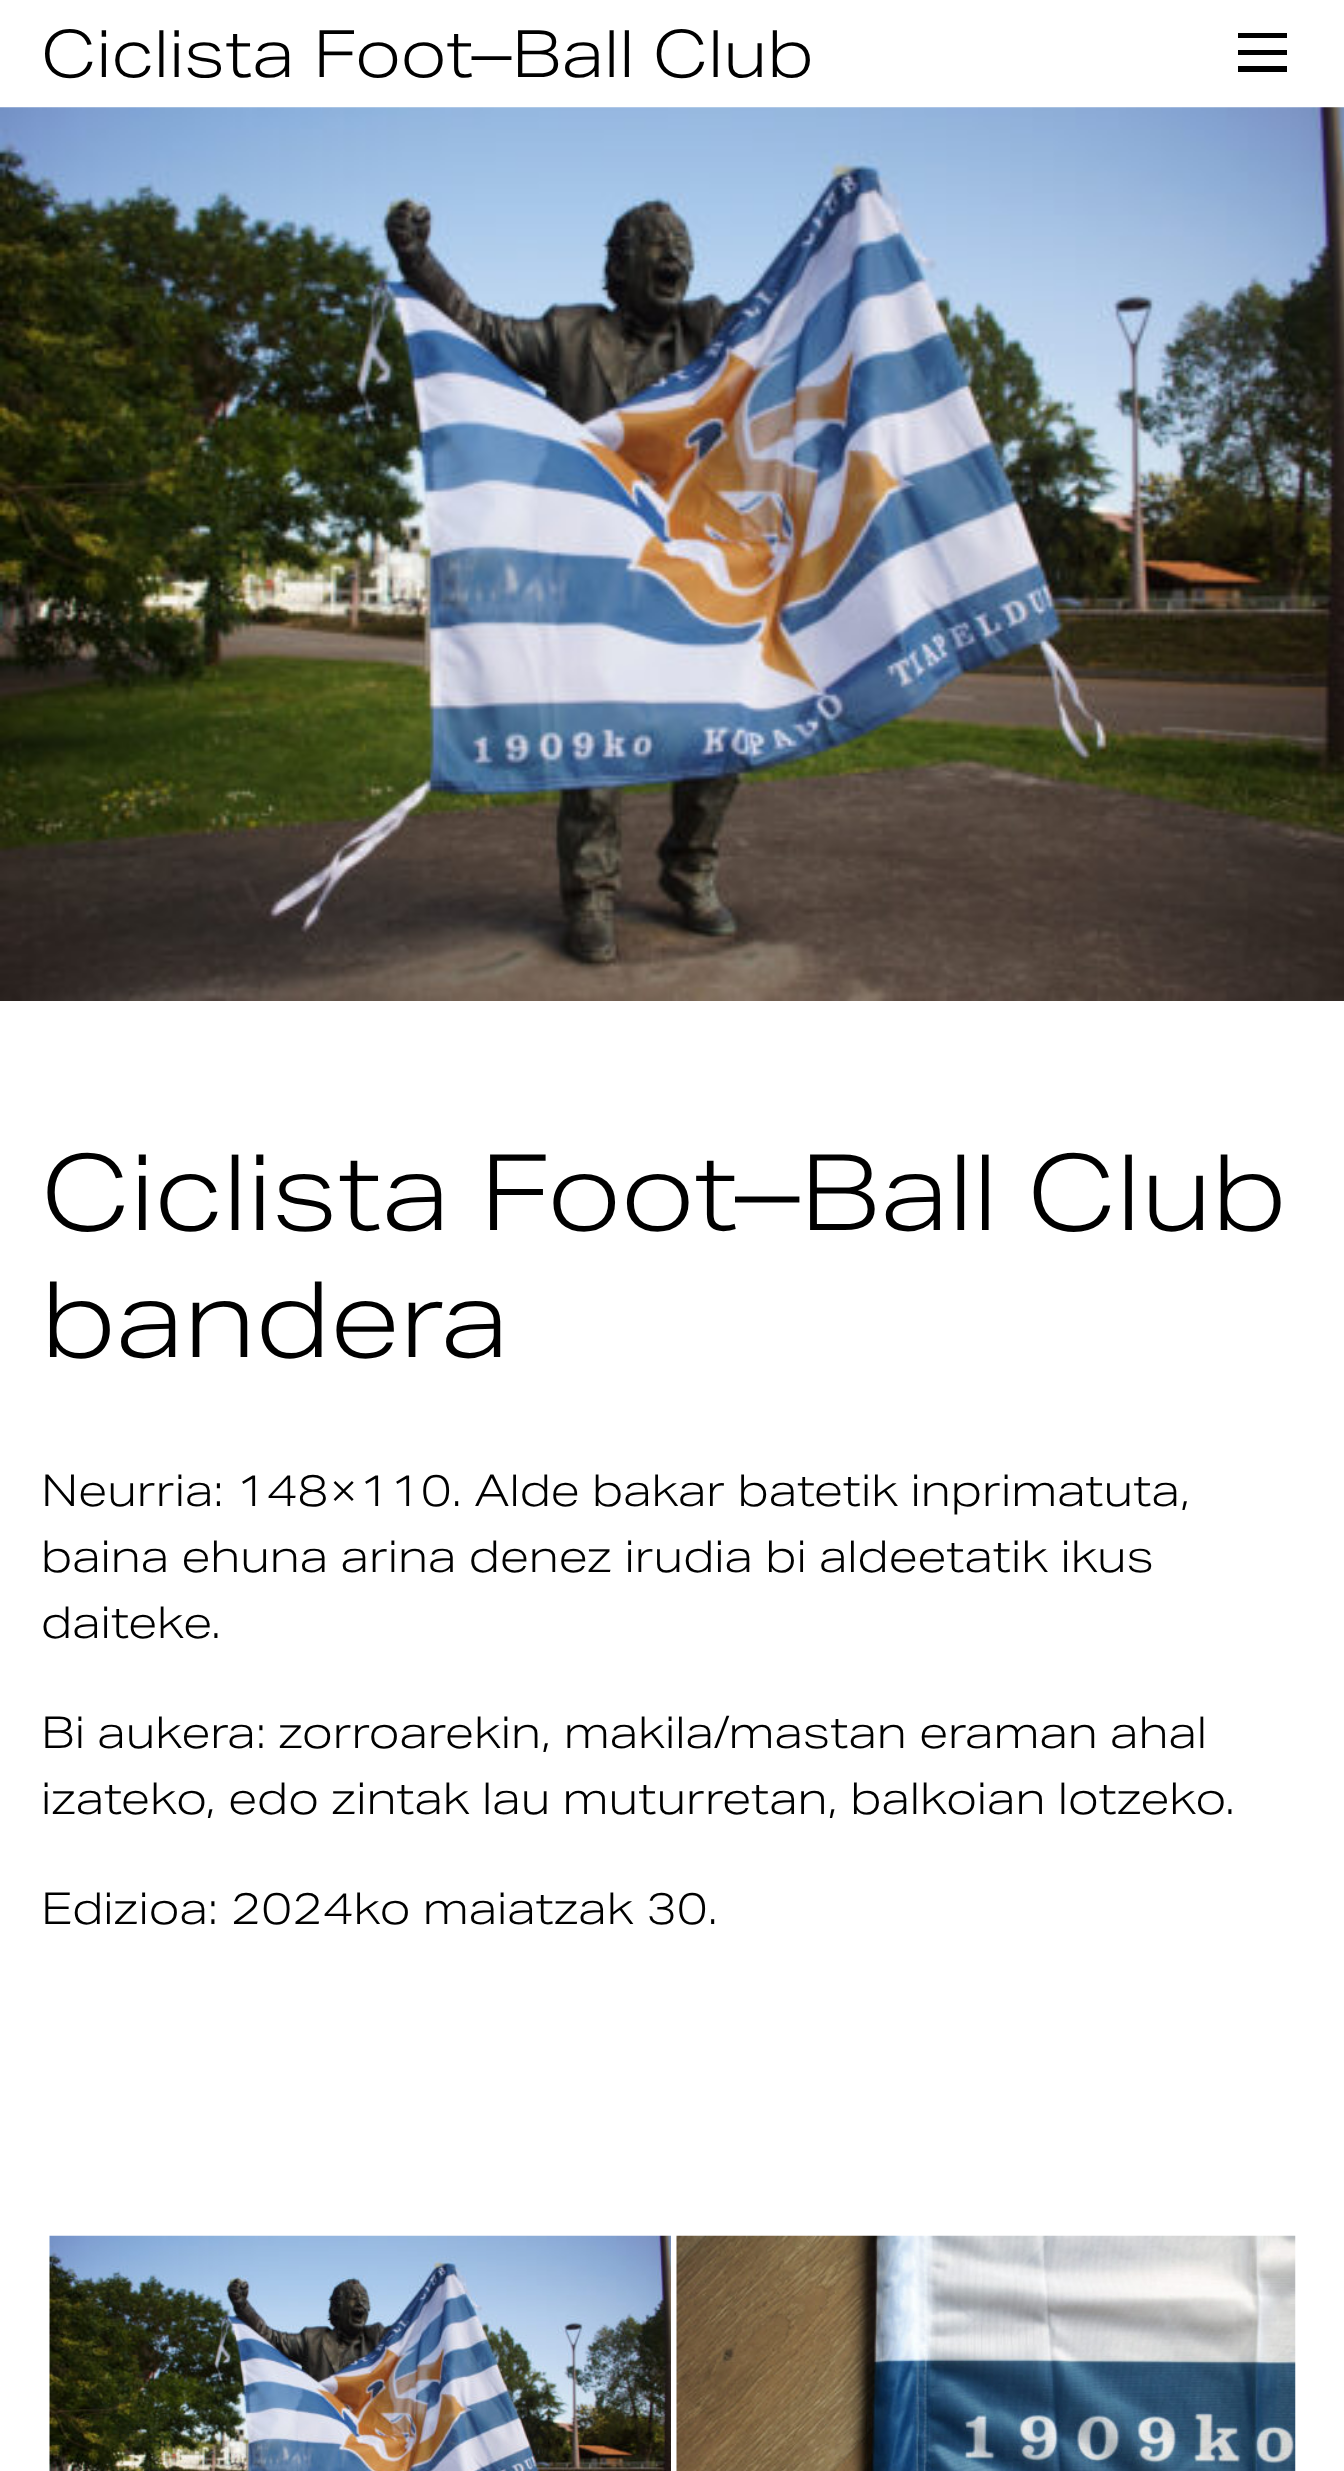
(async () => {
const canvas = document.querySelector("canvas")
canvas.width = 1344
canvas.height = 2471
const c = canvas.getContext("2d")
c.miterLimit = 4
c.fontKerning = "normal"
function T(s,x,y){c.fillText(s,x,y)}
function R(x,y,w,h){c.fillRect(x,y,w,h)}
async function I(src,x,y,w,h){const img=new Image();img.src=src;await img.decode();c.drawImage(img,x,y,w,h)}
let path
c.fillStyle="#fff"
R(0,0,1344,2471)
c.font="300 65.5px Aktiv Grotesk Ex"
c.fillStyle="#000"
T("Ciclista Foot–Ball Club",41,77)
path = new Path2D("M1238 33v5h49v-5zm0 22h49v-5h-49zm0 17h49v-6h-49z")
c.fill(path)
await I("1.png",0,107,1344,894)
c.font="300 105.6px Aktiv Grotesk Ex"
T("Ciclista Foot–Ball Club",41,1230)
T("bandera",41,1357)
c.font="300 44px Aktiv Grotesk Ex"
T("Neurria: 148×110. Alde bakar batetik inprimatuta,",41,1506)
T("baina ehuna arina denez irudia bi aldeetatik ikus",41,1572)
T("daiteke.",41,1638)
T("Bi aukera: zorroarekin, makila/mastan eraman ahal",41,1748)
T("izateko, edo zintak lau muturretan, balkoian lotzeko.",41,1814)
T("Edizioa: 2024ko maiatzak 30.",41,1924)
await I("2.png",49,2235,622,236)
await I("3.png",676,2235,620,236)
})()
